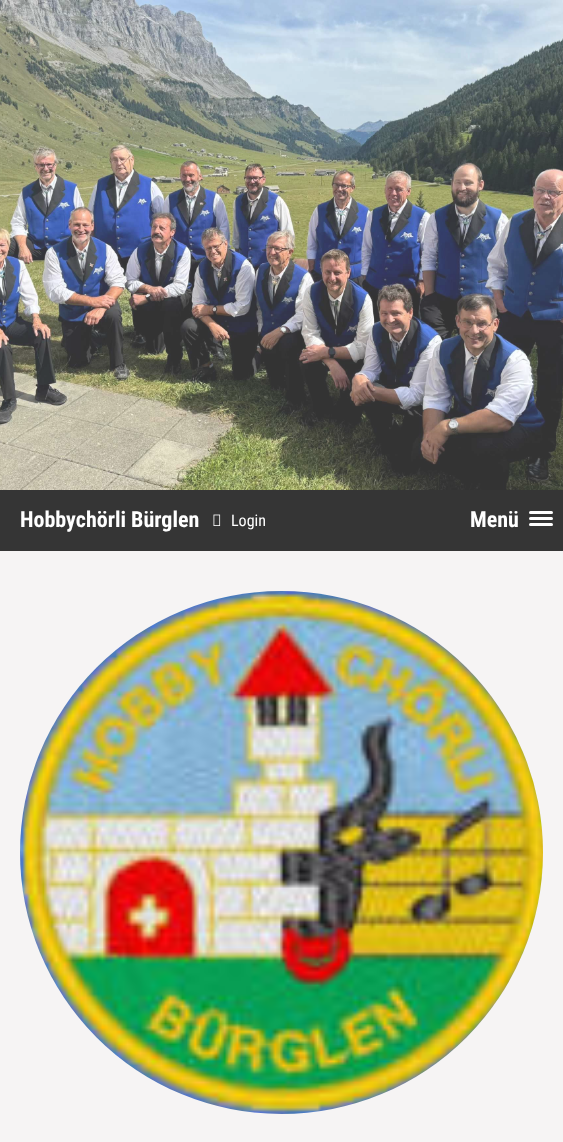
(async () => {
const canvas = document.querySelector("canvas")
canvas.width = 563
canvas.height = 1142
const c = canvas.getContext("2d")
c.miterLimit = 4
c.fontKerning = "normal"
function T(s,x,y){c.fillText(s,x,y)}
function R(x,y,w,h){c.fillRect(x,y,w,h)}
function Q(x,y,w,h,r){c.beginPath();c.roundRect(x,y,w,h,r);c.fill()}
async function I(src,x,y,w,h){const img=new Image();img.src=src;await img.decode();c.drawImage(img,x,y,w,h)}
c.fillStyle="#fff"
R(0,0,563,1142)
await I("1.png",0,0,563,490)
c.fillStyle="#353535"
R(0,490,563,61)
c.font="bold 22px Roboto Condensed"
c.fillStyle="#fff"
T("Hobbychörli Bürglen",20,527)
await I("2.png",213,514,8,12)
c.font="16px Roboto Condensed"
T("Login",231,526)
c.font="bold 22px Roboto Condensed"
T("Menü",470,527)
Q(529,511,24,3,1.5)
Q(529,517,24,3,1.5)
Q(529,523,24,3,1.5)
c.fillStyle="#f6f4f4"
R(0,551,563,591)
await I("3.png",20,591,523,523)
})()
